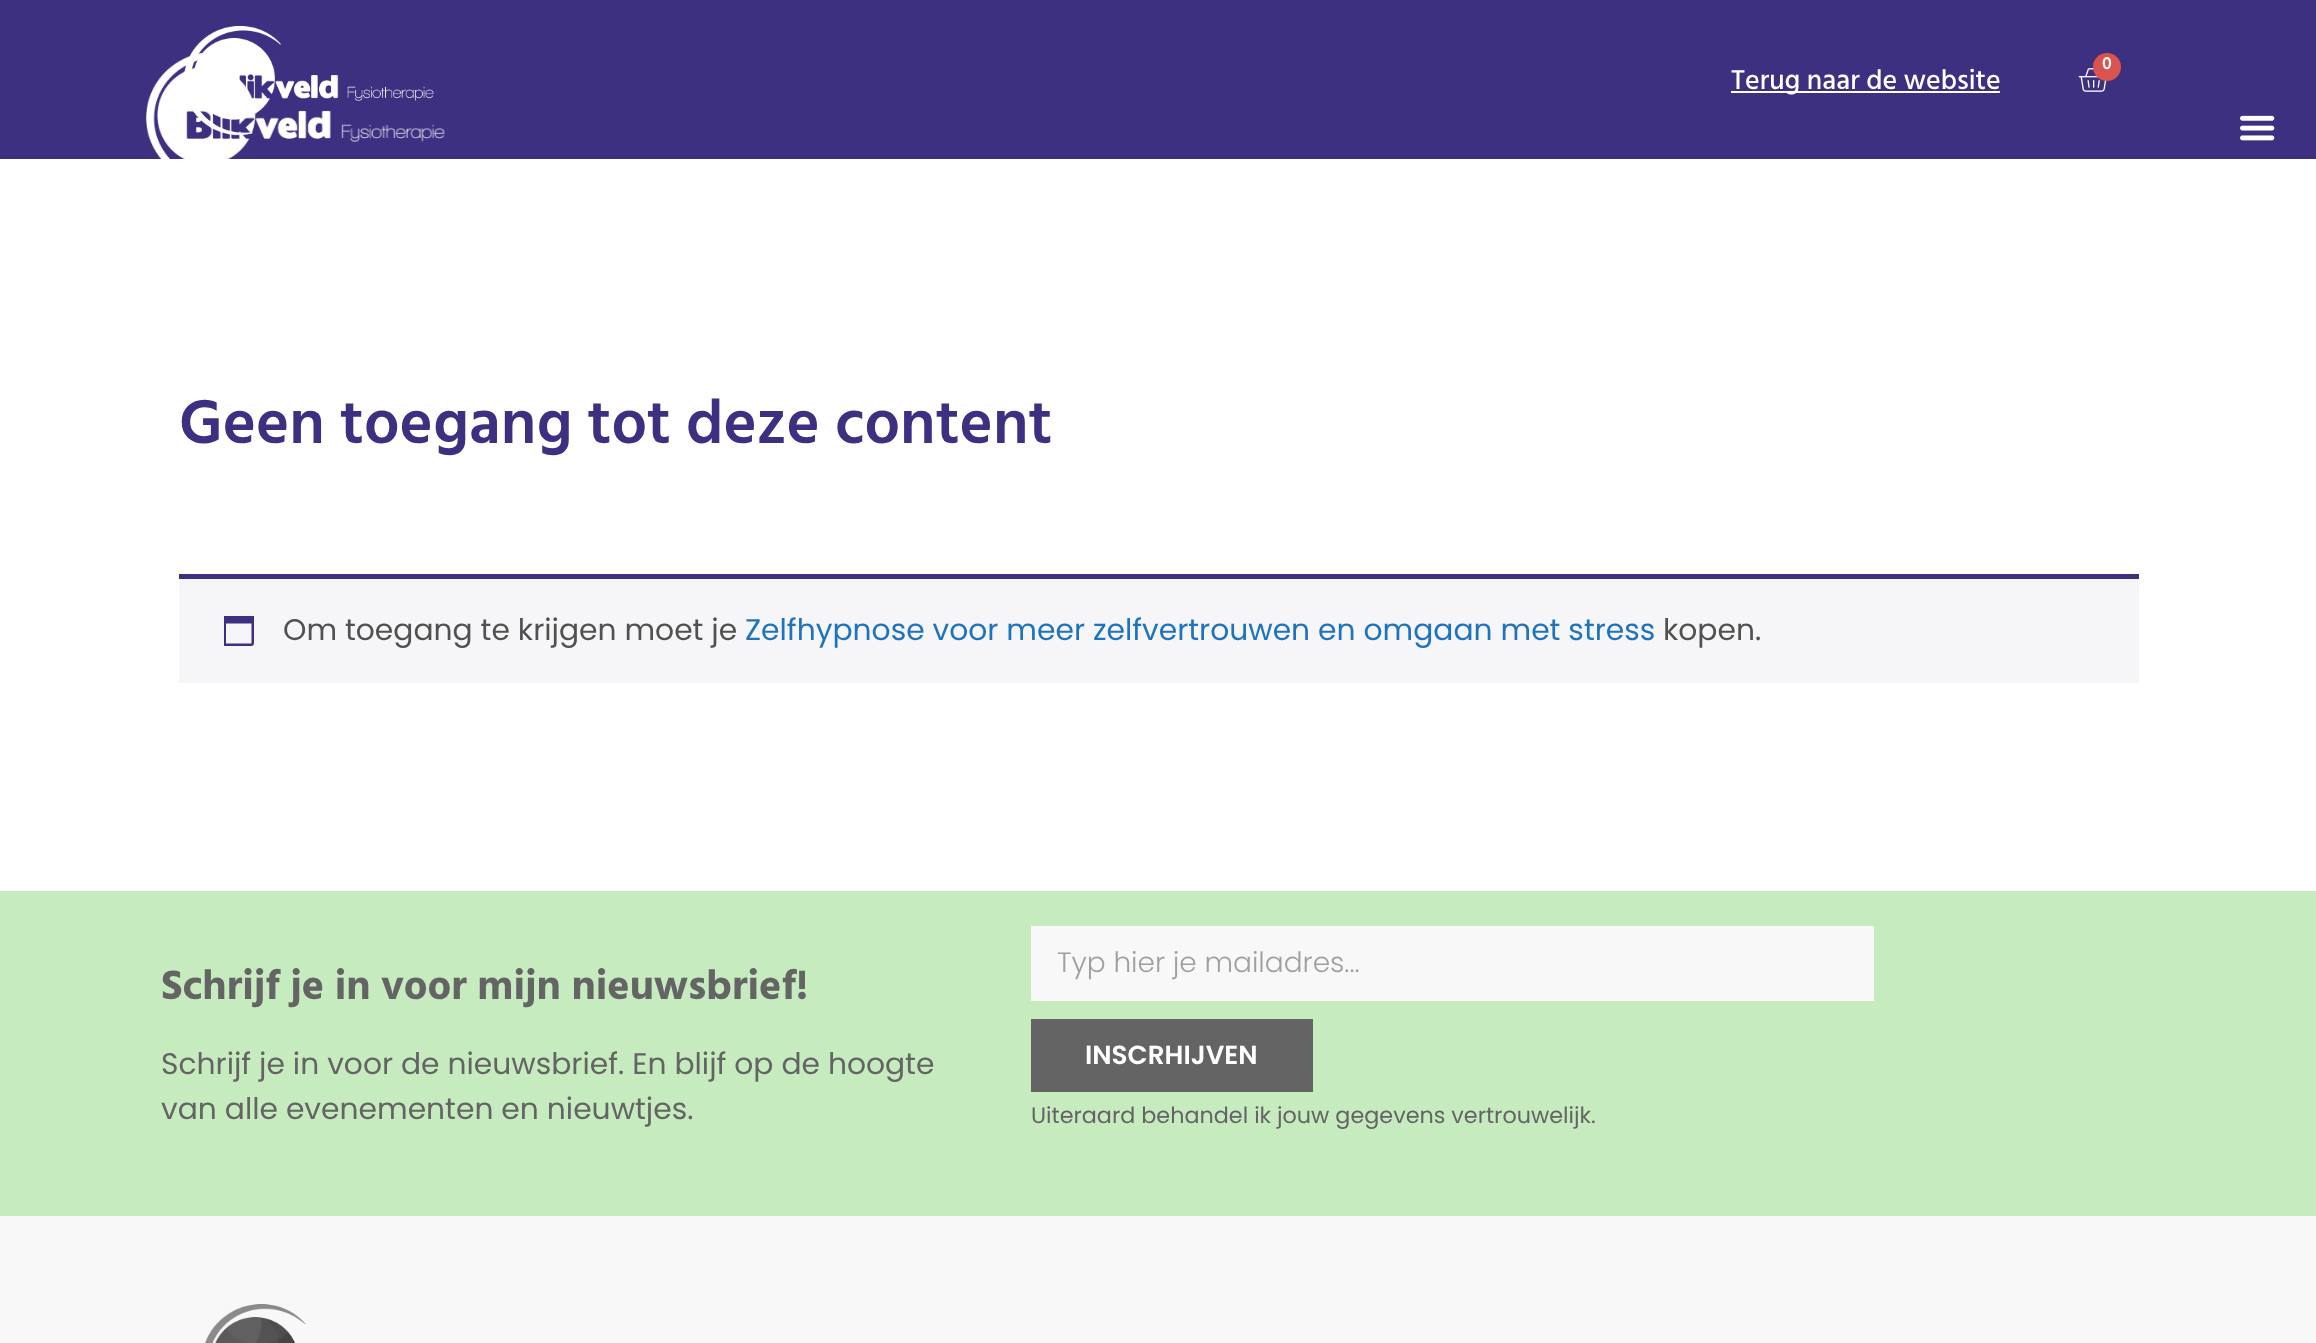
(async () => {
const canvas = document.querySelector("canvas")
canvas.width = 2316
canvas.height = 1343
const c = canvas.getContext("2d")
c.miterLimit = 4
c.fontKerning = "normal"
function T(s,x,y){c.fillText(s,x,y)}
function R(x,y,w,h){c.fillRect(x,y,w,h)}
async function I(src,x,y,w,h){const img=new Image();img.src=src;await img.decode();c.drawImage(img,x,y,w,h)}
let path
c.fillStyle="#fff"
R(0,0,2316,1343)
c.fillStyle="#3e3081"
R(0,0,2316,159)
await I("3.png",184,26,250,110)
await I("1.png",146,52,299,107)
await I("2.png",2240,115,35,26)
await I("4.png",2078,68,29,24)
c.fillStyle="#d9534f"
c.beginPath()
c.arc(2107,67,14,0,7)
c.fill()
c.font="600 18px Hind Siliguri"
c.fillStyle="#fff"
T("0",2102,69)
R(1731,91,269,2)
c.font="500 28px Hind Siliguri"
T("Terug naar de website",1731,89)
c.font="600 63px Hind Siliguri"
c.fillStyle="#3e3081"
T("Geen toegang tot deze content",179,443)
c.fillStyle="#f6f5f8"
R(179,579,1960,104)
c.fillStyle="#3e3081"
R(179,574,1960,5)
path = new Path2D("M251.5 623.5h-25.5v20h25.5zm2.5-7.5v23c0 7 .5 7-7 7h-23v-30z")
c.fill(path)
c.font="29.75px Poppins"
c.fillStyle="#515151"
T("Om toegang te krijgen moet je",283,640)
c.fillStyle="#1e73be"
T("Zelfhypnose voor meer zelfvertrouwen en omgaan met stress",745,640)
c.fillStyle="#515151"
T("kopen.",1663,640)
c.fillStyle="#c6ebbe"
R(0,891,2316,325)
c.font="bold 42px Hind Siliguri"
c.fillStyle="#646464"
T("Schrijf je in voor mijn nieuwsbrief!",161,999)
c.font="29.75px Poppins"
T("Schrijf je in voor de nieuwsbrief. En blijf op de hoogte",161,1074)
T("van alle evenementen en nieuwtjes.",161,1119)
c.fillStyle="#f8f8f8"
R(1031,926,843,75)
c.font="300 28px Poppins"
c.fillStyle="#9f9f9f"
T("Typ hier je mailadres...",1057,972)
c.fillStyle="#646464"
R(1031,1019,282,73)
c.font="600 26.25px Poppins"
c.fillStyle="#fff"
T("INSCRHIJVEN",1085,1064)
c.font="22.3px Poppins"
c.fillStyle="#646464"
T("Uiteraard behandel ik jouw gegevens vertrouwelijk.",1031,1123)
c.fillStyle="#f8f8f8"
R(0,1216,2316,127)
await I("5.png",205,1304,101,39)
})()
